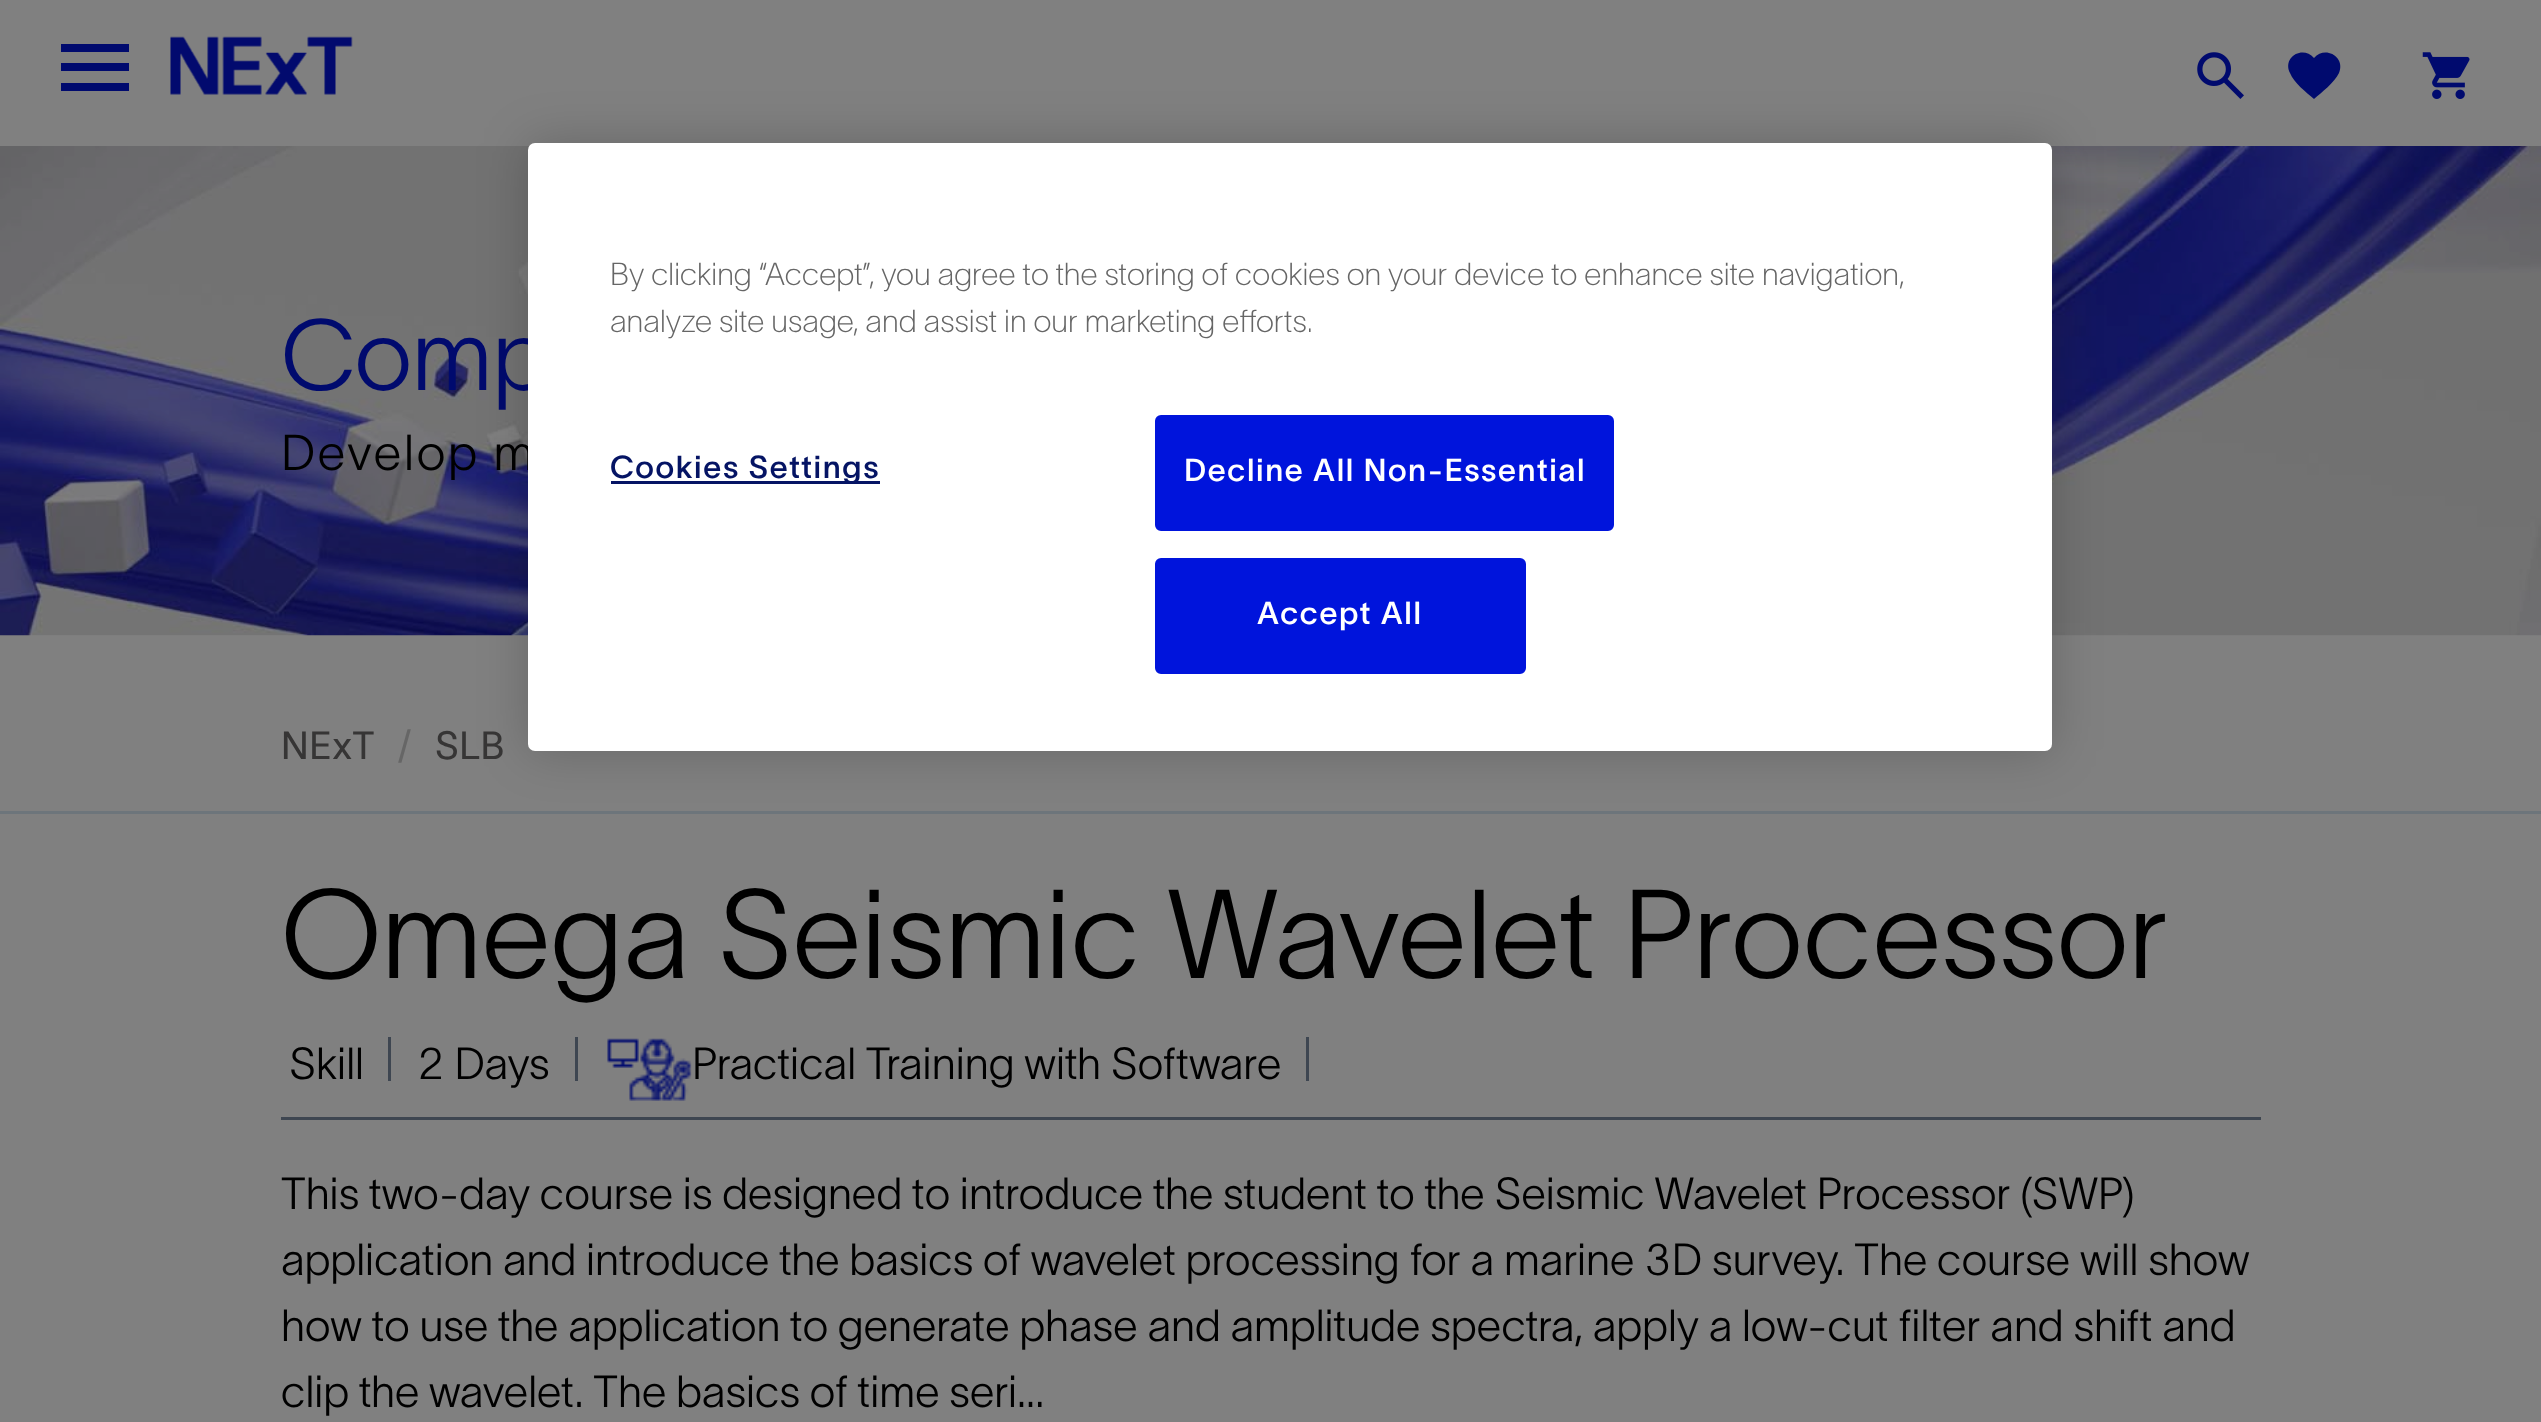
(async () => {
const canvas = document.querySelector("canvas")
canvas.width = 2541
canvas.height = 1422
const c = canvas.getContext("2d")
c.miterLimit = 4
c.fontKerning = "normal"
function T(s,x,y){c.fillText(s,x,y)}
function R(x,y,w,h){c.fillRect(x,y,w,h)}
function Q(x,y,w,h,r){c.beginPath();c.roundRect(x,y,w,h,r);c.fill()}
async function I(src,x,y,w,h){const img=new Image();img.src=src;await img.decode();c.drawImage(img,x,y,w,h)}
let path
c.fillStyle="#808080"
R(0,0,2541,1422)
c.fillStyle="#000a6e"
R(61,44,68,8)
R(61,63,68,8)
R(61,83,68,8)
await I("1.png",170,36,183,59)
await I("2.png",2197,52,47,47)
path = new Path2D("M2314 99c-8-7-20-16-24-26c-8-16 13-28 24-15c11-13 32-1 25 15c-5 10-17 19-25 26z")
c.fill(path)
await I("3.png",2422,52,48,47)
await I("4.png",0,146,2541,490)
c.font="99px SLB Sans"
T("Comp",281,390)
c.letterSpacing="2.75px"
c.font="49.5px SLB Sans"
c.fillStyle="#000"
T("Develop m",281,470)
c.fillStyle="#6d757b"
R(0,811,2541,3)
c.fillStyle="#00000033"
c.filter="blur(25px)"
c.beginPath()
c.roundRect(528,143,1524,608,7)
c.fill()
c.filter="none"
c.fillStyle="#fff"
Q(528,143,1524,608,7)
c.letterSpacing="0px"
c.font="31.3px 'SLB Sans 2'"
c.fillStyle="#666"
T("By clicking “Accept”, you agree to the storing of cookies on your device to enhance site navigation,",610,285)
T("analyze site usage, and assist in our marketing efforts.",610,332)
c.fillStyle="#051464"
R(611,481,269,3)
c.letterSpacing="1.6px"
c.font="bold 31.3px SLB Sans"
T("Cookies Settings",610,478)
c.fillStyle="#0014dc"
c.beginPath()
c.roundRect(1156.5,416.5,456,113,4.5)
c.fill()
c.strokeStyle="#0014dc"
c.lineWidth=3
c.stroke()
c.fillStyle="#fff"
T("Decline All Non-Essential",1184,481)
c.fillStyle="#0014dc"
c.beginPath()
c.roundRect(1156.5,559.5,368,113,4.5)
c.fill()
c.stroke()
c.fillStyle="#fff"
T("Accept All",1257,624)
c.letterSpacing="0.5px"
c.font="500 38.5px SLB Sans"
c.fillStyle="#363535"
T("NExT",281,759)
c.fillStyle="#666"
T("/",398,759)
c.fillStyle="#363535"
T("SLB",435,759)
c.fillStyle="#3e4651"
R(281,1117,1980,3)
c.letterSpacing="0px"
c.font="123.75px SLB Sans"
c.fillStyle="#000"
T("Omega Seismic Wavelet Processor",281,978)
c.font="44px SLB Sans"
T("Skill",289,1079)
c.fillStyle="#3e4651"
R(388,1037,3,44)
c.fillStyle="#000"
T("2 Days",417,1079)
c.fillStyle="#3e4651"
R(575,1037,3,44)
await I("5.png",607,1038,85,63)
c.fillStyle="#000"
T("Practical Training with Software",692,1079)
c.fillStyle="#3e4651"
R(1306,1037,3,44)
c.fillStyle="#000"
T("This two-day course is designed to introduce the student to the Seismic Wavelet Processor (SWP)",281,1209)
T("application and introduce the basics of wavelet processing for a marine 3D survey. The course will show",281,1275)
T("how to use the application to generate phase and amplitude spectra, apply a low-cut filter and shift and",281,1341)
T("clip the wavelet. The basics of time seri...",281,1407)
})()
